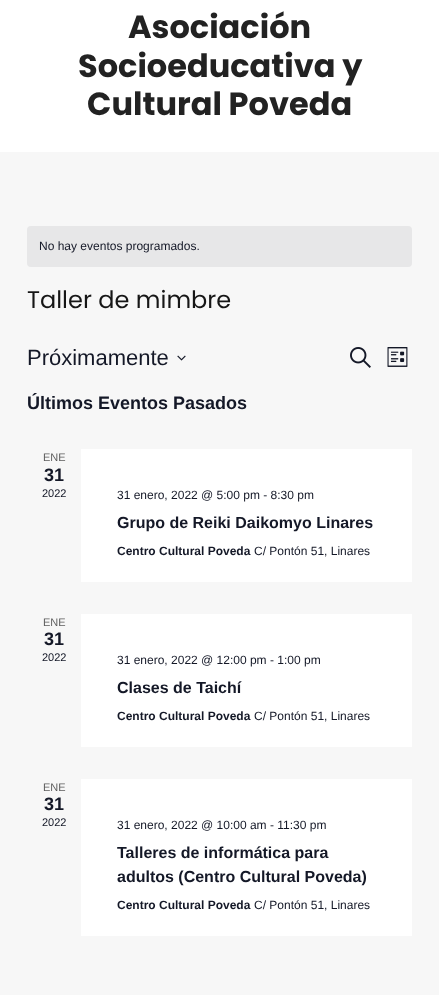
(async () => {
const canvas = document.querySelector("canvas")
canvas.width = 439
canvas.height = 995
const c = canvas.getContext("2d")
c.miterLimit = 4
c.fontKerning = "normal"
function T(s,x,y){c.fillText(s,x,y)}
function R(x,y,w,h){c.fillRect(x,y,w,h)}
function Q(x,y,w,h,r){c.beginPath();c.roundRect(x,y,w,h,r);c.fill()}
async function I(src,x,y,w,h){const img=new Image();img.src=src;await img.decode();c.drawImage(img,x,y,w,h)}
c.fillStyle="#f7f7f7"
R(0,0,439,995)
c.fillStyle="#fff"
R(0,0,439,152)
c.font="bold 32px Poppins"
c.fillStyle="#222"
T("Asociación",128,38)
T("Socioeducativa y",78,77)
T("Cultural Poveda",87,115)
c.fillStyle="#e7e7e8"
Q(27,226,385,41,4)
c.font="12px Liberation Sans"
c.fillStyle="#141827"
T("No hay eventos programados.",39,250)
c.font="24px Poppins"
c.fillStyle="#161616"
T("Taller de mimbre",27,308)
c.font="22px Liberation Sans"
c.fillStyle="#141827"
T("Próximamente",27,365)
await I("1.png",177,355,9,6)
await I("2.png",350,347,21,21)
await I("3.png",387,347,21,20)
c.font="bold 18px Liberation Sans"
T("Últimos Eventos Pasados",27,409)
c.font="11px Liberation Sans"
c.fillStyle="#5d5d5d"
T("ENE",43,461)
c.font="bold 18px Liberation Sans"
c.fillStyle="#141827"
T("31",44,481)
c.font="11px Liberation Sans"
T("2022",42,497)
c.fillStyle="#fff"
R(81,449,331,133)
c.font="12px Liberation Sans"
c.fillStyle="#141827"
T("31 enero, 2022 @ 5:00 pm - 8:30 pm",117,499)
c.font="bold 16px Liberation Sans"
T("Grupo de Reiki Daikomyo Linares",117,528)
c.font="bold 12px Liberation Sans"
T("Centro Cultural Poveda",117,555)
c.font="12px Liberation Sans"
T("C/ Pontón 51, Linares",254,555)
c.font="11px Liberation Sans"
c.fillStyle="#5d5d5d"
T("ENE",43,626)
c.font="bold 18px Liberation Sans"
c.fillStyle="#141827"
T("31",44,645)
c.font="11px Liberation Sans"
T("2022",42,661)
c.fillStyle="#fff"
R(81,614,331,133)
c.font="12px Liberation Sans"
c.fillStyle="#141827"
T("31 enero, 2022 @ 12:00 pm - 1:00 pm",117,664)
c.font="bold 16px Liberation Sans"
T("Clases de Taichí",117,693)
c.font="bold 12px Liberation Sans"
T("Centro Cultural Poveda",117,720)
c.font="12px Liberation Sans"
T("C/ Pontón 51, Linares",254,720)
c.font="11px Liberation Sans"
c.fillStyle="#5d5d5d"
T("ENE",43,791)
c.font="bold 18px Liberation Sans"
c.fillStyle="#141827"
T("31",44,810)
c.font="11px Liberation Sans"
T("2022",42,826)
c.fillStyle="#fff"
R(81,779,331,157)
c.font="12px Liberation Sans"
c.fillStyle="#141827"
T("31 enero, 2022 @ 10:00 am - 11:30 pm",117,829)
c.font="bold 16px Liberation Sans"
T("Talleres de informática para",117,858)
T("adultos (Centro Cultural Poveda)",117,882)
c.font="bold 12px Liberation Sans"
T("Centro Cultural Poveda",117,909)
c.font="12px Liberation Sans"
T("C/ Pontón 51, Linares",254,909)
})()
